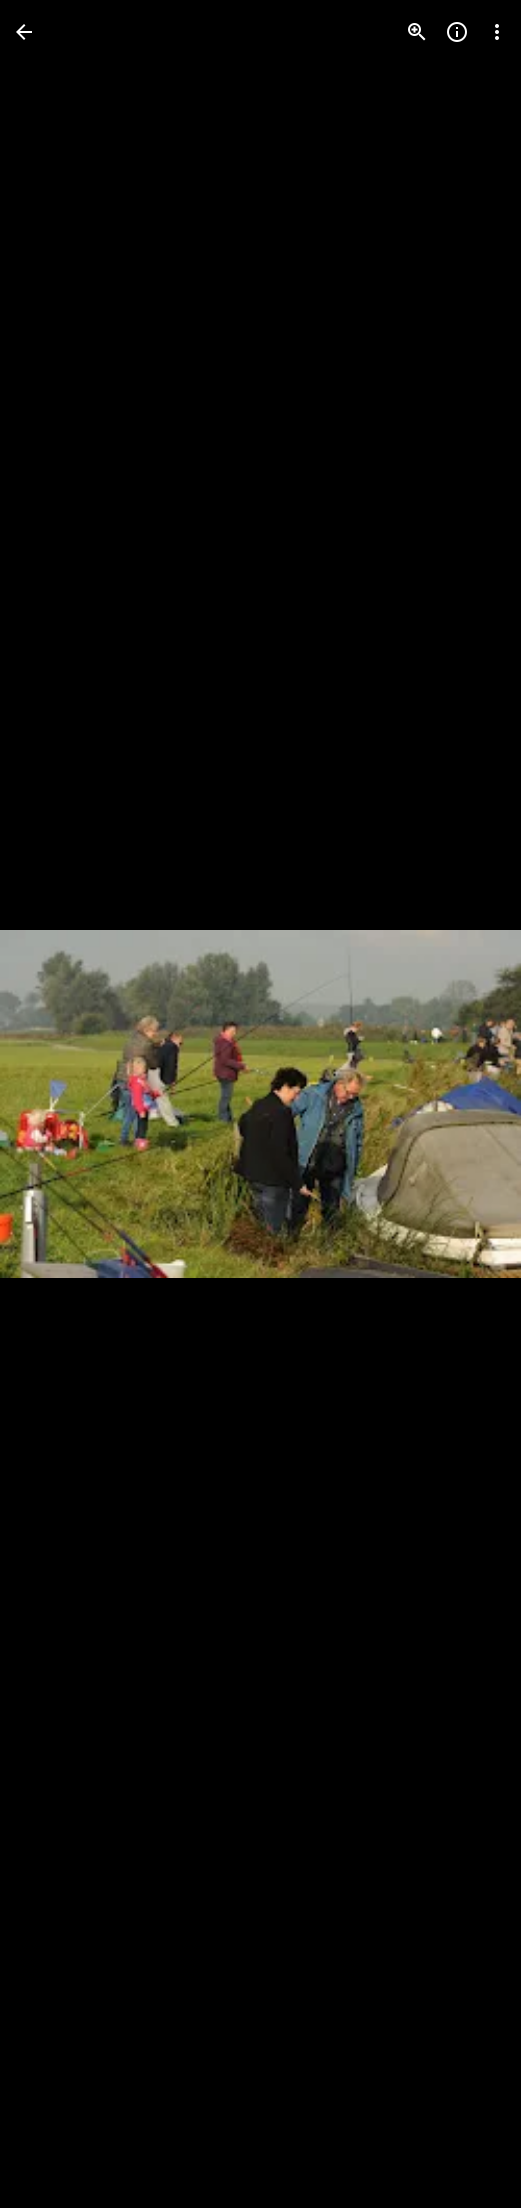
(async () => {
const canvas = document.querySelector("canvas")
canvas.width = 521
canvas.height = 2208
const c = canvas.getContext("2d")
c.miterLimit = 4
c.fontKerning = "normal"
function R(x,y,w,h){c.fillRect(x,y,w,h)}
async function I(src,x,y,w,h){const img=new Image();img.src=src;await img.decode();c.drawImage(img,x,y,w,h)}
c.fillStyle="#000"
R(0,0,521,2208)
await I("1.png",16,24,16,16)
await I("2.png",408,23,18,18)
await I("3.png",447,22,20,20)
await I("4.png",495,24,4,16)
await I("5.png",0,930,521,348)
})()
